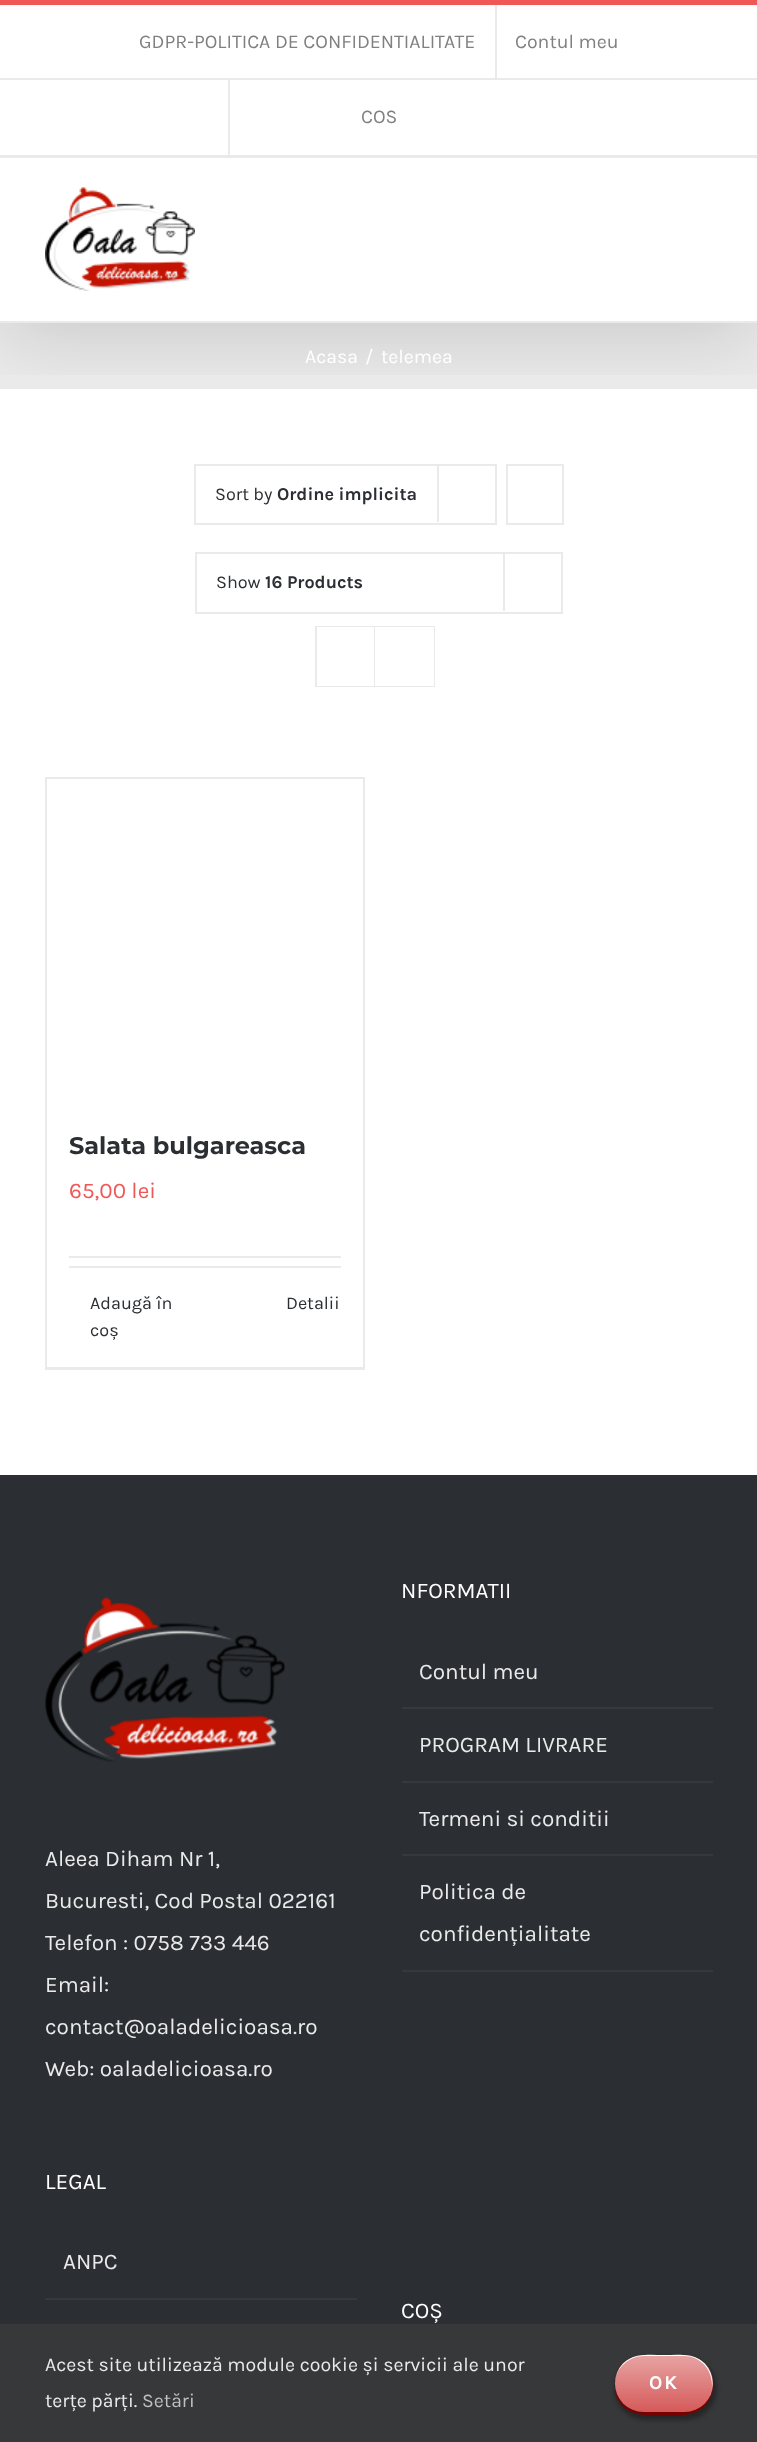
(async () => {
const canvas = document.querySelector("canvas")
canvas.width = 757
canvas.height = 2442
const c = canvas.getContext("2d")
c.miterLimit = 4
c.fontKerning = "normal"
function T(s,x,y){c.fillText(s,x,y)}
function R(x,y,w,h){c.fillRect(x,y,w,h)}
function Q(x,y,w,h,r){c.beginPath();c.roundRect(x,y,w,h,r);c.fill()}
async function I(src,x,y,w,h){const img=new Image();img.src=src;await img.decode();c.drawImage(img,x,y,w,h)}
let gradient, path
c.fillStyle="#fff"
R(0,0,757,2442)
c.fillStyle="#eaeaea"
R(0,323,757,66)
c.save()
c.beginPath()
c.rect(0,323,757,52)
c.clip()
c.fillStyle="#00000024"
c.filter="blur(37.5px)"
c.beginPath()
c.rect(3,18,752,317)
c.fill()
c.filter="none"
c.restore()
c.fillStyle="#f05858"
R(0,0,757,5)
c.fillStyle="#eaeaea"
R(0,155,757,3)
c.font="19.5px Karla"
c.fillStyle="#808080"
T("GDPR-POLITICA DE CONFIDENTIALITATE",139,48)
c.fillStyle="#eaeaea"
R(495,5,2,75)
c.fillStyle="#808080"
T("Contul meu",515,48)
c.fillStyle="#eaeaea"
R(0,78,757,2)
R(228,80,2,75)
c.fillStyle="#808080"
T("COS",361,123)
c.fillStyle="#eaeaea"
R(0,321,757,2)
await I("1.png",45,187,150,104)
c.fillStyle="#fff"
T("Acasa",305,363)
T("/",365,363)
T("telemea",381,363)
c.strokeStyle="#eaeaea"
c.lineWidth=2
c.strokeRect(195,465,301,59)
c.font="18px Karla"
c.fillStyle="#2b2e32"
T("Sort by",215,500)
c.font="bold 18px Karla"
T("Ordine implicita",277,500)
c.fillStyle="#eaeaea"
R(437,464,2,58)
c.strokeRect(507,465,56,59)
c.strokeRect(196,553,366,60)
c.font="18px Karla"
c.fillStyle="#2b2e32"
T("Show",216,588)
c.font="bold 18px Karla"
T("16 Products",265,588)
c.fillStyle="#eaeaea"
R(503,552,2,59)
c.strokeRect(316,627,118,59)
c.fillStyle="#fff"
R(317,627,57,59)
c.fillStyle="#eaeaea"
R(374,627,1,59)
c.fillStyle="#fff"
R(375,627,59,59)
c.fillStyle="#eaeaea"
R(45,777,320,2)
R(363,777,2,593)
R(45,1367,320,3)
R(45,777,2,593)
c.font="100 24px Montserrat"
c.fillStyle="#2b2e32"
T("Salata bulgareasca",69,1154)
c.font="22.5px Karla"
c.fillStyle="#f05858"
T("65,00 lei",69,1198)
c.fillStyle="#eaeaea"
R(69,1256,272,2)
R(69,1266,272,2)
c.font="18px Karla"
c.fillStyle="#2b2e32"
T("Adaugă în",90,1309)
T("coș",90,1336)
T("Detalii",286,1309)
R(0,1475,757,849)
await I("2.png",45,1597,240,165)
c.font="22.5px Karla"
c.fillStyle="#eaeaea"
T("Aleea Diham Nr 1,",45,1866)
T("Bucuresti, Cod Postal 022161",45,1908)
T("Telefon : 0758 733 446",45,1950)
T("Email:",45,1992)
T("contact@oaladelicioasa.ro",45,2034)
T("Web: oaladelicioasa.ro",45,2076)
c.fillStyle="#fff"
T("NFORMATII",401,1598)
c.fillStyle="#35383c"
R(402,1707,311,2)
c.fillStyle="#eaeaea"
T("Contul meu",419,1679)
c.fillStyle="#35383c"
R(402,1781,311,2)
c.fillStyle="#eaeaea"
T("PROGRAM LIVRARE",419,1752)
c.fillStyle="#35383c"
R(402,1854,311,2)
c.fillStyle="#eaeaea"
T("Termeni si conditii",419,1826)
c.fillStyle="#35383c"
R(402,1970,311,2)
c.fillStyle="#eaeaea"
T("Politica de",419,1899)
T("confidențialitate",419,1941)
c.fillStyle="#fff"
T("LEGAL",45,2189)
c.fillStyle="#35383c"
R(45,2298,312,2)
c.fillStyle="#eaeaea"
T("ANPC",63,2269)
c.fillStyle="#fff"
T("COȘ",401,2318)
c.fillStyle="#363839"
R(0,2324,757,118)
c.font="19.5px Karla"
c.fillStyle="#eaeaea"
T("Acest site utilizează module cookie și servicii ale unor",45,2371)
T("terțe părți.",45,2407)
c.fillStyle="#bfbfbf"
T("Setări",142,2407)
c.fillStyle="#0000004d"
c.filter="blur(2px)"
c.beginPath()
c.roundRect(614,2357,103,63,31.5)
c.fill()
c.filter="none"
c.fillStyle="#700"
path = new Path2D("M615 2385c-1 14 9 27 23 29c8 2 18 1 26 1c8 0 18 1 26-1c16-3 26-19 22-34v4c0 15-12 28-28 28h-40c-16 0-28-12-29-27z")
c.fill(path)
gradient = c.createLinearGradient(664,2355,664,2412)
gradient.addColorStop(0,"#e8a4a4")
gradient.addColorStop(1,"#d65a5a")
c.fillStyle = gradient
Q(615,2355,98,57,28.5)
c.fillStyle="#fff"
path = new Path2D("M644 2356h40c16 0 28 13 28 29c0 4-1 9-3 12c9-16 0-38-19-41c-8-2-18-1-26-1c-8 0-18-1-26 1c-14 2-23 15-23 28c0-15 13-28 29-28z")
c.fill(path)
c.letterSpacing="2px"
c.font="bold 19.5px Karla"
T("OK",649,2389)
})()
